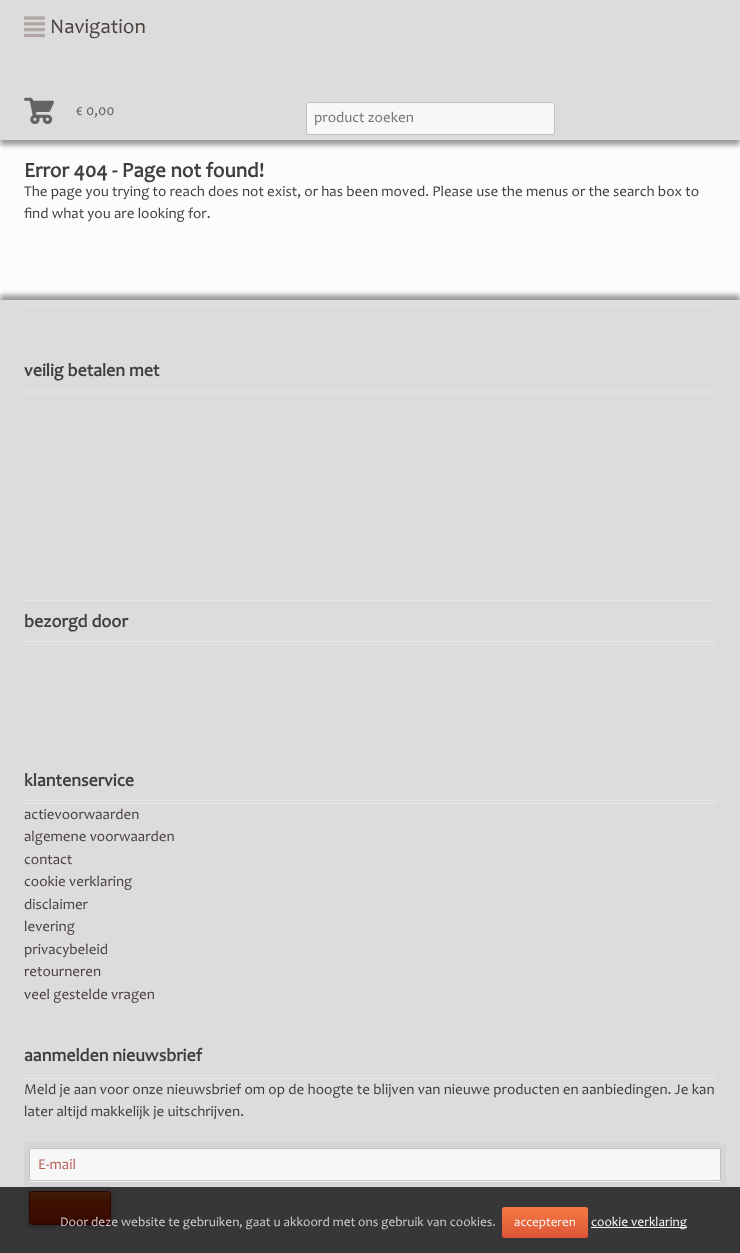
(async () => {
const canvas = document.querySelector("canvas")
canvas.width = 740
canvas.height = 1253
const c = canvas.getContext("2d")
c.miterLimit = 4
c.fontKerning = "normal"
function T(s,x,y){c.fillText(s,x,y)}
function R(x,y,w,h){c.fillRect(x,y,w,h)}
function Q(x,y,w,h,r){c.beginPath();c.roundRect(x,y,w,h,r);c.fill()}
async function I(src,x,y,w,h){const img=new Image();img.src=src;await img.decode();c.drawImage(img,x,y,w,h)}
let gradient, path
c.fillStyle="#fcfcfc"
R(0,0,740,1253)
c.fillStyle="#999"
c.filter="blur(2.5px)"
c.beginPath()
c.rect(0,5,740,140)
c.fill()
c.filter="none"
c.fillStyle="#dcdcdc"
R(0,0,740,140)
await I("1.png",24,16,21,22)
c.font="21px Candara"
c.fillStyle="#4a413e"
T("Navigation",50,33)
c.font="30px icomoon"
c.fillStyle="#646464"
T("£",24,124)
c.font="15px Candara"
T("€ 0,00",76,115)
c.fillStyle="#f7f7f7"
c.beginPath()
c.roundRect(306.5,102.5,248,32,1.5)
c.fill()
c.strokeStyle="#c4c0bf"
c.stroke()
c.fillStyle="#757575"
T("product zoeken",314,122)
c.font="bold 21px Candara"
c.fillStyle="#3e3e3e"
T("Error 404 - Page not found!",24,177)
c.font="15px Candara"
T("The page you trying to reach does not exist, or has been moved. Please use the menus or the search box to",24,196)
T("find what you are looking for.",24,218)
c.fillStyle="#999"
c.filter="blur(2.5px)"
c.beginPath()
c.rect(0,295,740,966)
c.fill()
c.filter="none"
c.fillStyle="#dcdcdc"
R(0,300,740,953)
c.fillStyle="#e8e4e3"
R(24,305,692,1)
R(24,390,692,1)
R(24,393,692,1)
c.font="bold 18px Candara"
c.fillStyle="#3e3e3e"
T("veilig betalen met",24,376)
c.fillStyle="#e8e4e3"
R(24,600,692,1)
R(24,641,692,1)
R(24,644,692,1)
c.fillStyle="#3e3e3e"
T("bezorgd door",24,627)
c.fillStyle="#e8e4e3"
R(24,800,692,1)
R(24,803,692,1)
c.fillStyle="#3e3e3e"
T("klantenservice",24,786)
c.font="15px Candara"
c.fillStyle="#4a413e"
T("actievoorwaarden",24,819)
T("algemene voorwaarden",24,841)
T("contact",24,864)
T("cookie verklaring",24,886)
T("disclaimer",24,909)
T("levering",24,931)
T("privacybeleid",24,954)
T("retourneren",24,976)
T("veel gestelde vragen",24,999)
c.fillStyle="#e8e4e3"
R(24,1075,692,1)
R(24,1078,692,1)
c.font="bold 18px Candara"
c.fillStyle="#3e3e3e"
T("aanmelden nieuwsbrief",24,1061)
c.font="15px Candara"
T("Meld je aan voor onze nieuwsbrief om op de hoogte te blijven van nieuwe producten en aanbiedingen. Je kan",24,1094)
T("later altijd makkelijk je uitschrijven.",24,1116)
c.fillStyle="#fff"
path = new Path2D("M29 1179c0 1 0 3 2 3h688c2 0 2-2 2-3c0 1-1 2-2 2h-688c-1 0-2-1-2-2z")
c.fill(path)
c.strokeStyle="#00000008"
c.lineWidth=5
c.strokeRect(26.5,1145.5,697,38)
c.fillStyle="#f7f7f7"
c.beginPath()
c.roundRect(29.5,1148.5,691,32,1.5)
c.fill()
c.strokeStyle="#c4c0bf"
c.lineWidth=1
c.stroke()
c.fillStyle="#b85f56"
T("E-mail",38,1169)
c.fillStyle="#00000033"
c.filter="blur(1px)"
c.beginPath()
c.roundRect(29,1192,82,34,3)
c.fill()
c.filter="none"
c.beginPath()
c.roundRect(26.5,1188.5,87,39,5.5)
c.strokeStyle="#00000012"
c.lineWidth=5
c.stroke()
gradient = c.createLinearGradient(70,1192,70,1224)
gradient.addColorStop(0,"#ff5911")
gradient.addColorStop(1,"#dd2600")
c.fillStyle = gradient
Q(30,1192,80,32,2)
c.fillStyle="#cc1500"
path = new Path2D("M30 1221c0 6 12 3 15 3h50c3 0 15 3 15-3c0 1-1 2-2 2h-76c-1 0-2-1-2-2z")
c.fill(path)
c.fillStyle="#ff7b33"
path = new Path2D("M32 1193h76c1 0 2 1 2 2c0-6-12-3-15-3h-50c-3 0-15-3-15 3c0-1 1-2 2-2z")
c.fill(path)
c.beginPath()
c.roundRect(29.5,1191.5,81,33,2.5)
c.strokeStyle="#bb0400"
c.lineWidth=1
c.stroke()
c.fillStyle="#000000bf"
R(0,1187,740,66)
c.font="13.3px Candara"
c.fillStyle="#cdcccc"
T("Door deze website te gebruiken, gaat u akkoord met ons gebruik van cookies.",60,1226)
gradient = c.createLinearGradient(545,1207,545,1238)
gradient.addColorStop(0,"#f67a44")
gradient.addColorStop(1,"#dd5437")
c.fillStyle = gradient
Q(502,1207,86,31,2.5)
c.font="13px Candara"
c.fillStyle="#f6f6f6"
T("accepteren",514,1226)
R(591,1227,96,1)
c.font="13.3px Candara"
T("cookie verklaring",591,1226)
})()
